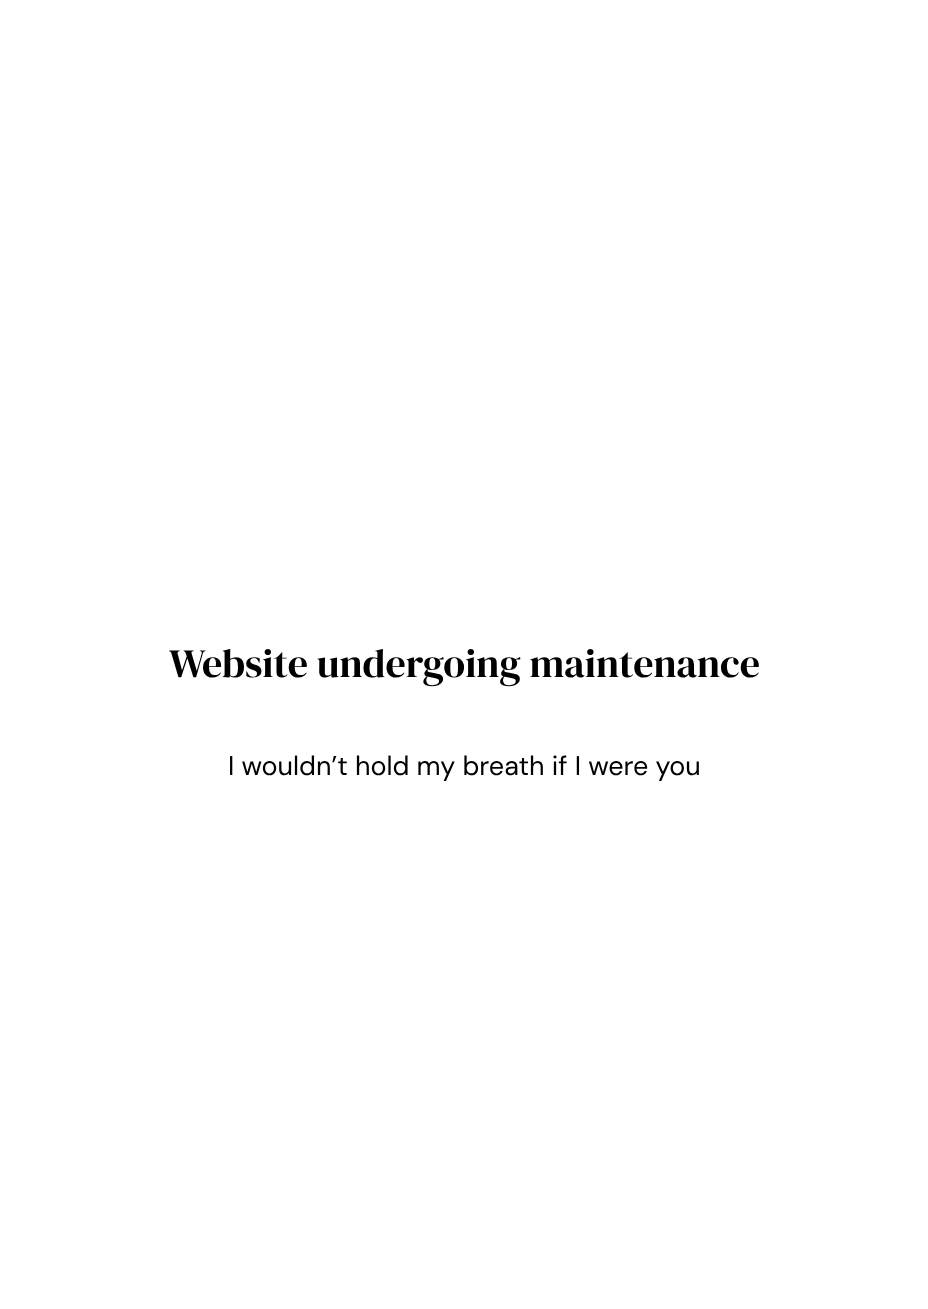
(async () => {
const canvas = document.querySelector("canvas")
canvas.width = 928
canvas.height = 1309
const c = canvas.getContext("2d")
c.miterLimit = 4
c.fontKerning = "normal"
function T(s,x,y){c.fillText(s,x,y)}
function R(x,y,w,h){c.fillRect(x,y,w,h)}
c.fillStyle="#fff"
R(0,0,928,1309)
c.font="40px DM Serif Display"
c.fillStyle="#000"
T("Website undergoing maintenance",169,677)
c.font="27px DM Sans"
T("I wouldn’t hold my breath if I were you",228,775)
})()
